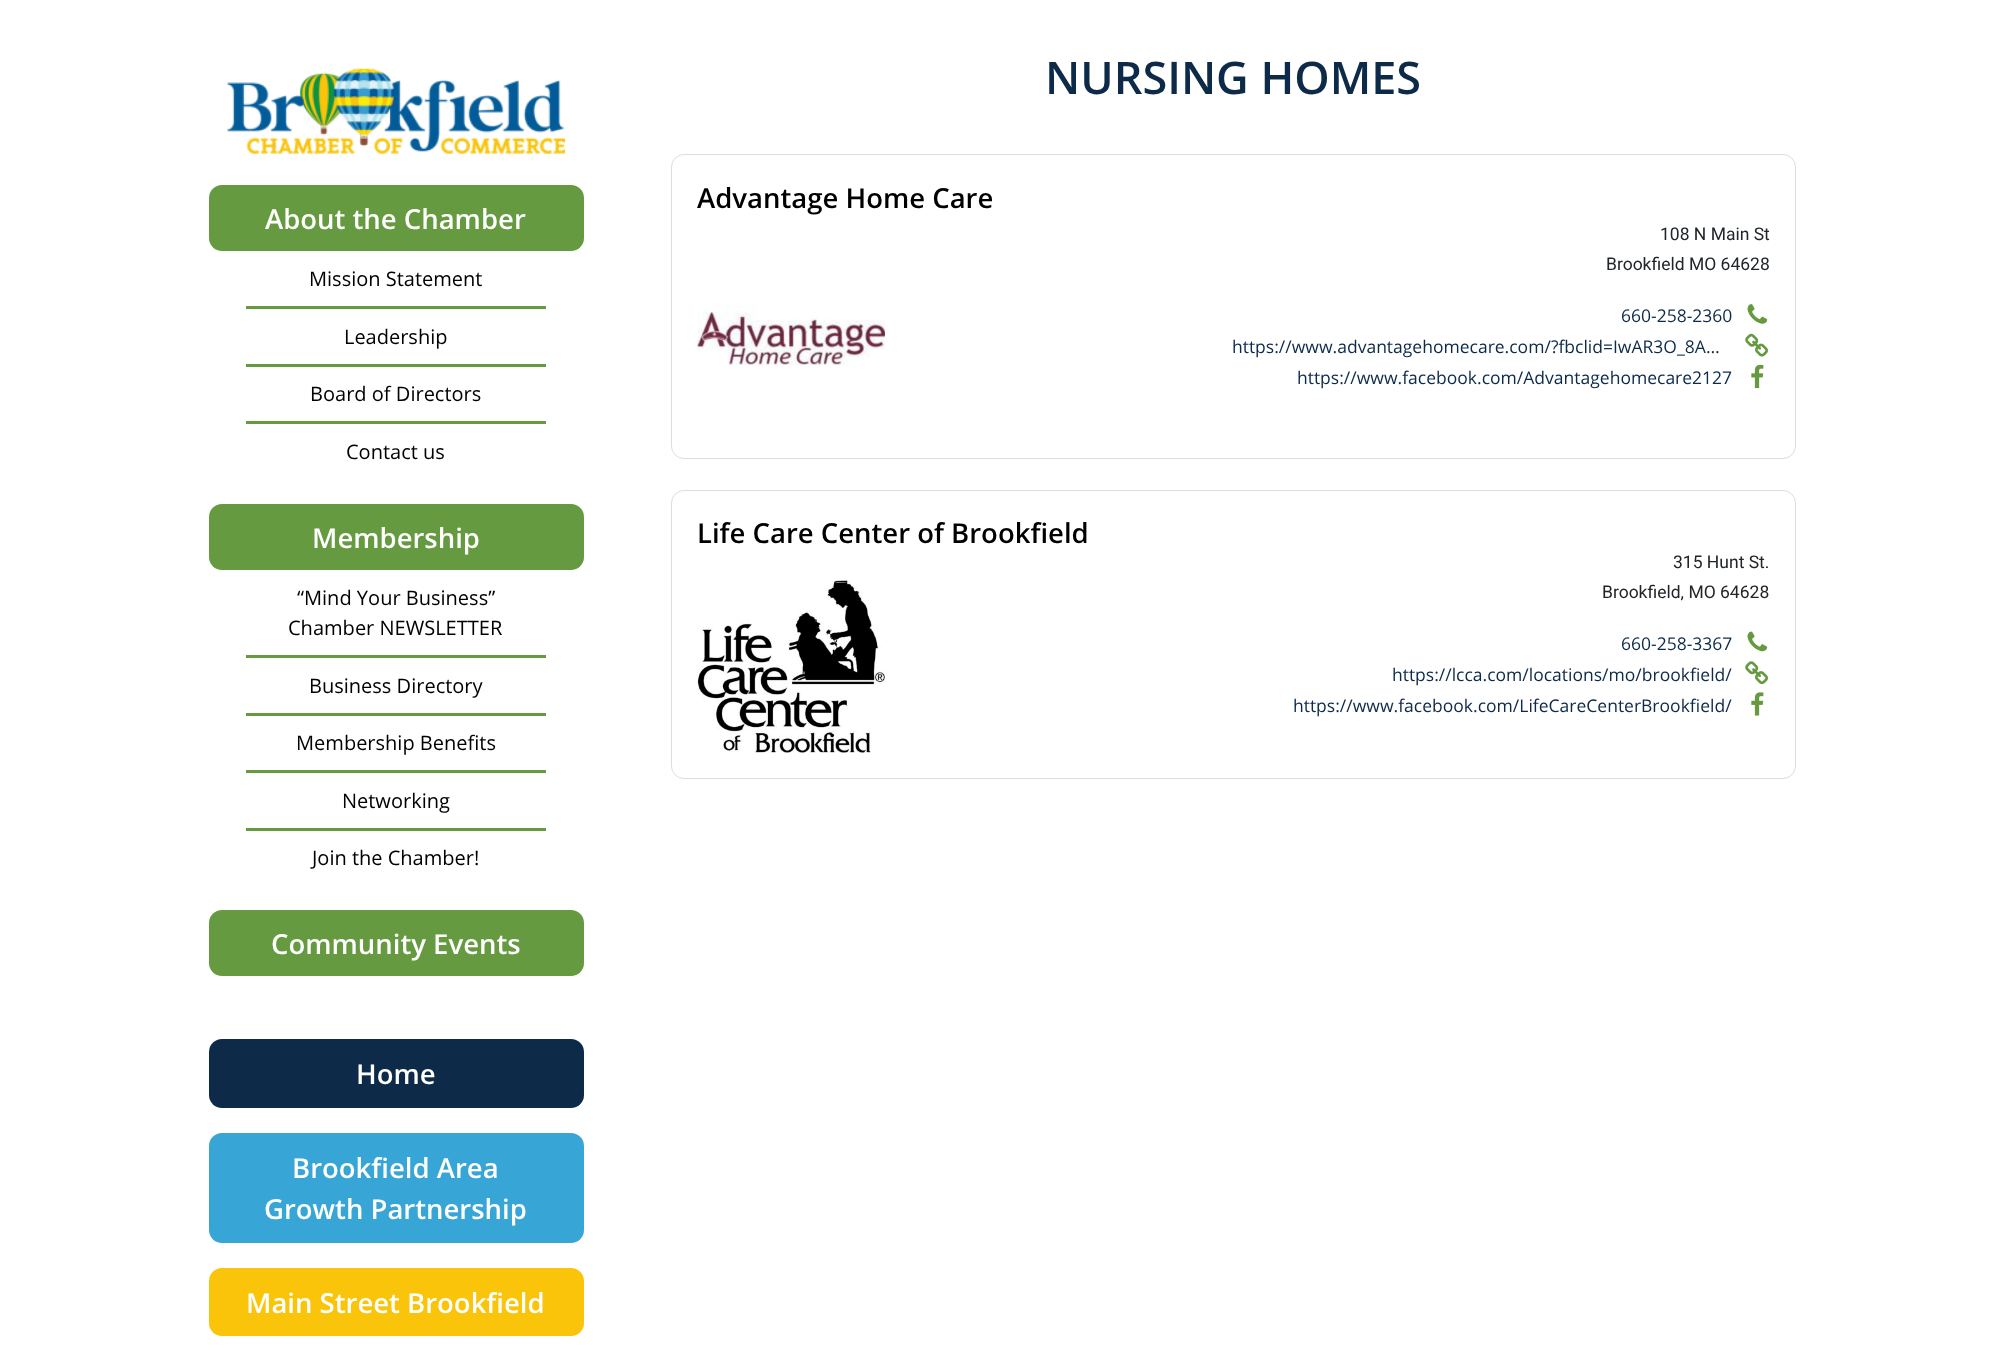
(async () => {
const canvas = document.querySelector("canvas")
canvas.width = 2003
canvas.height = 1346
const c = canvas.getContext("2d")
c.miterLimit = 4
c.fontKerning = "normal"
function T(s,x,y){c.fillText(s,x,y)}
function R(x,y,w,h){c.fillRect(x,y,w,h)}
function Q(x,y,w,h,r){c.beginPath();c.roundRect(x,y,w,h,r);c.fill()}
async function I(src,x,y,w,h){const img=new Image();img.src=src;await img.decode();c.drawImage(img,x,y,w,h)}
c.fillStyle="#fff"
R(0,0,2003,1346)
await I("1.png",227,68,339,86)
c.fillStyle="#659a41"
Q(209,185,375,66,13)
c.font="600 27.5px Open Sans"
c.fillStyle="#fff"
T("About the Chamber",265,229)
c.fillStyle="#659a41"
R(246,306,300,3)
c.font="20px Open Sans"
c.fillStyle="#000"
T("Mission Statement",309,286)
c.fillStyle="#659a41"
R(246,364,300,3)
c.fillStyle="#000"
T("Leadership",344,344)
c.fillStyle="#659a41"
R(246,421,300,3)
c.fillStyle="#000"
T("Board of Directors",310,401)
T("Contact us",346,459)
c.fillStyle="#659a41"
Q(209,504,375,66,13)
c.font="600 27.5px Open Sans"
c.fillStyle="#fff"
T("Membership",312,548)
c.fillStyle="#659a41"
R(246,655,300,3)
c.font="20px Open Sans"
c.fillStyle="#000"
T("“Mind Your Business”",297,605)
T("Chamber NEWSLETTER",288,635)
c.fillStyle="#659a41"
R(246,713,300,3)
c.fillStyle="#000"
T("Business Directory",309,693)
c.fillStyle="#659a41"
R(246,770,300,3)
c.fillStyle="#000"
T("Membership Benefits",296,750)
c.fillStyle="#659a41"
R(246,828,300,3)
c.fillStyle="#000"
T("Networking",342,808)
T("Join the Chamber!",312,865)
c.fillStyle="#659a41"
Q(209,910,375,66,13)
c.font="600 27.5px Open Sans"
c.fillStyle="#fff"
T("Community Events",271,954)
c.fillStyle="#0d2a49"
Q(209,1039,375,69,13)
c.fillStyle="#fff"
T("Home",356,1084)
c.fillStyle="#38a5d7"
Q(209,1133,375,110,13)
c.fillStyle="#fff"
T("Brookfield Area",292,1178)
T("Growth Partnership",264,1219)
c.fillStyle="#fac40b"
Q(209,1268,375,68,13)
c.fillStyle="#fff"
T("Main Street Brookfield",246,1313)
c.font="600 45px Open Sans"
c.fillStyle="#0d2a49"
T("NURSING HOMES",1045,94)
c.beginPath()
c.roundRect(671.5,154.5,1124,304,12.5)
c.strokeStyle="#ddd"
c.stroke()
c.font="600 27.5px Open Sans"
c.fillStyle="#000"
T("Advantage Home Care",697,208)
await I("2.png",697,305,188,61)
c.font="17.5px Roboto"
c.fillStyle="#212529"
T("108 N Main St",1660,240)
T("Brookfield MO 64628",1606,270)
c.font="17.5px Open Sans"
c.fillStyle="#0d2a49"
T("660-258-2360",1621,322)
await I("3.png",1747,304,21,20)
T("https://www.advantagehomecare.com/?fbclid=IwAR3O_8A…",1232,353)
await I("4.png",1745,333,23,24)
T("https://www.facebook.com/Advantagehomecare2127",1297,384)
await I("5.png",1751,364,13,25)
c.beginPath()
c.roundRect(671.5,490.5,1124,288,12.5)
c.stroke()
c.font="600 27.5px Open Sans"
c.fillStyle="#000"
T("Life Care Center of Brookfield",697,543)
await I("6.png",697,580,188,173)
c.font="17.5px Roboto"
c.fillStyle="#212529"
T("315 Hunt St.",1673,568)
T("Brookfield, MO 64628",1602,598)
c.font="17.5px Open Sans"
c.fillStyle="#0d2a49"
T("660-258-3367",1621,650)
await I("7.png",1747,631,21,21)
T("https://lcca.com/locations/mo/brookfield/",1392,681)
await I("8.png",1745,661,23,24)
T("https://www.facebook.com/LifeCareCenterBrookfield/",1293,712)
await I("9.png",1751,692,13,24)
})()
